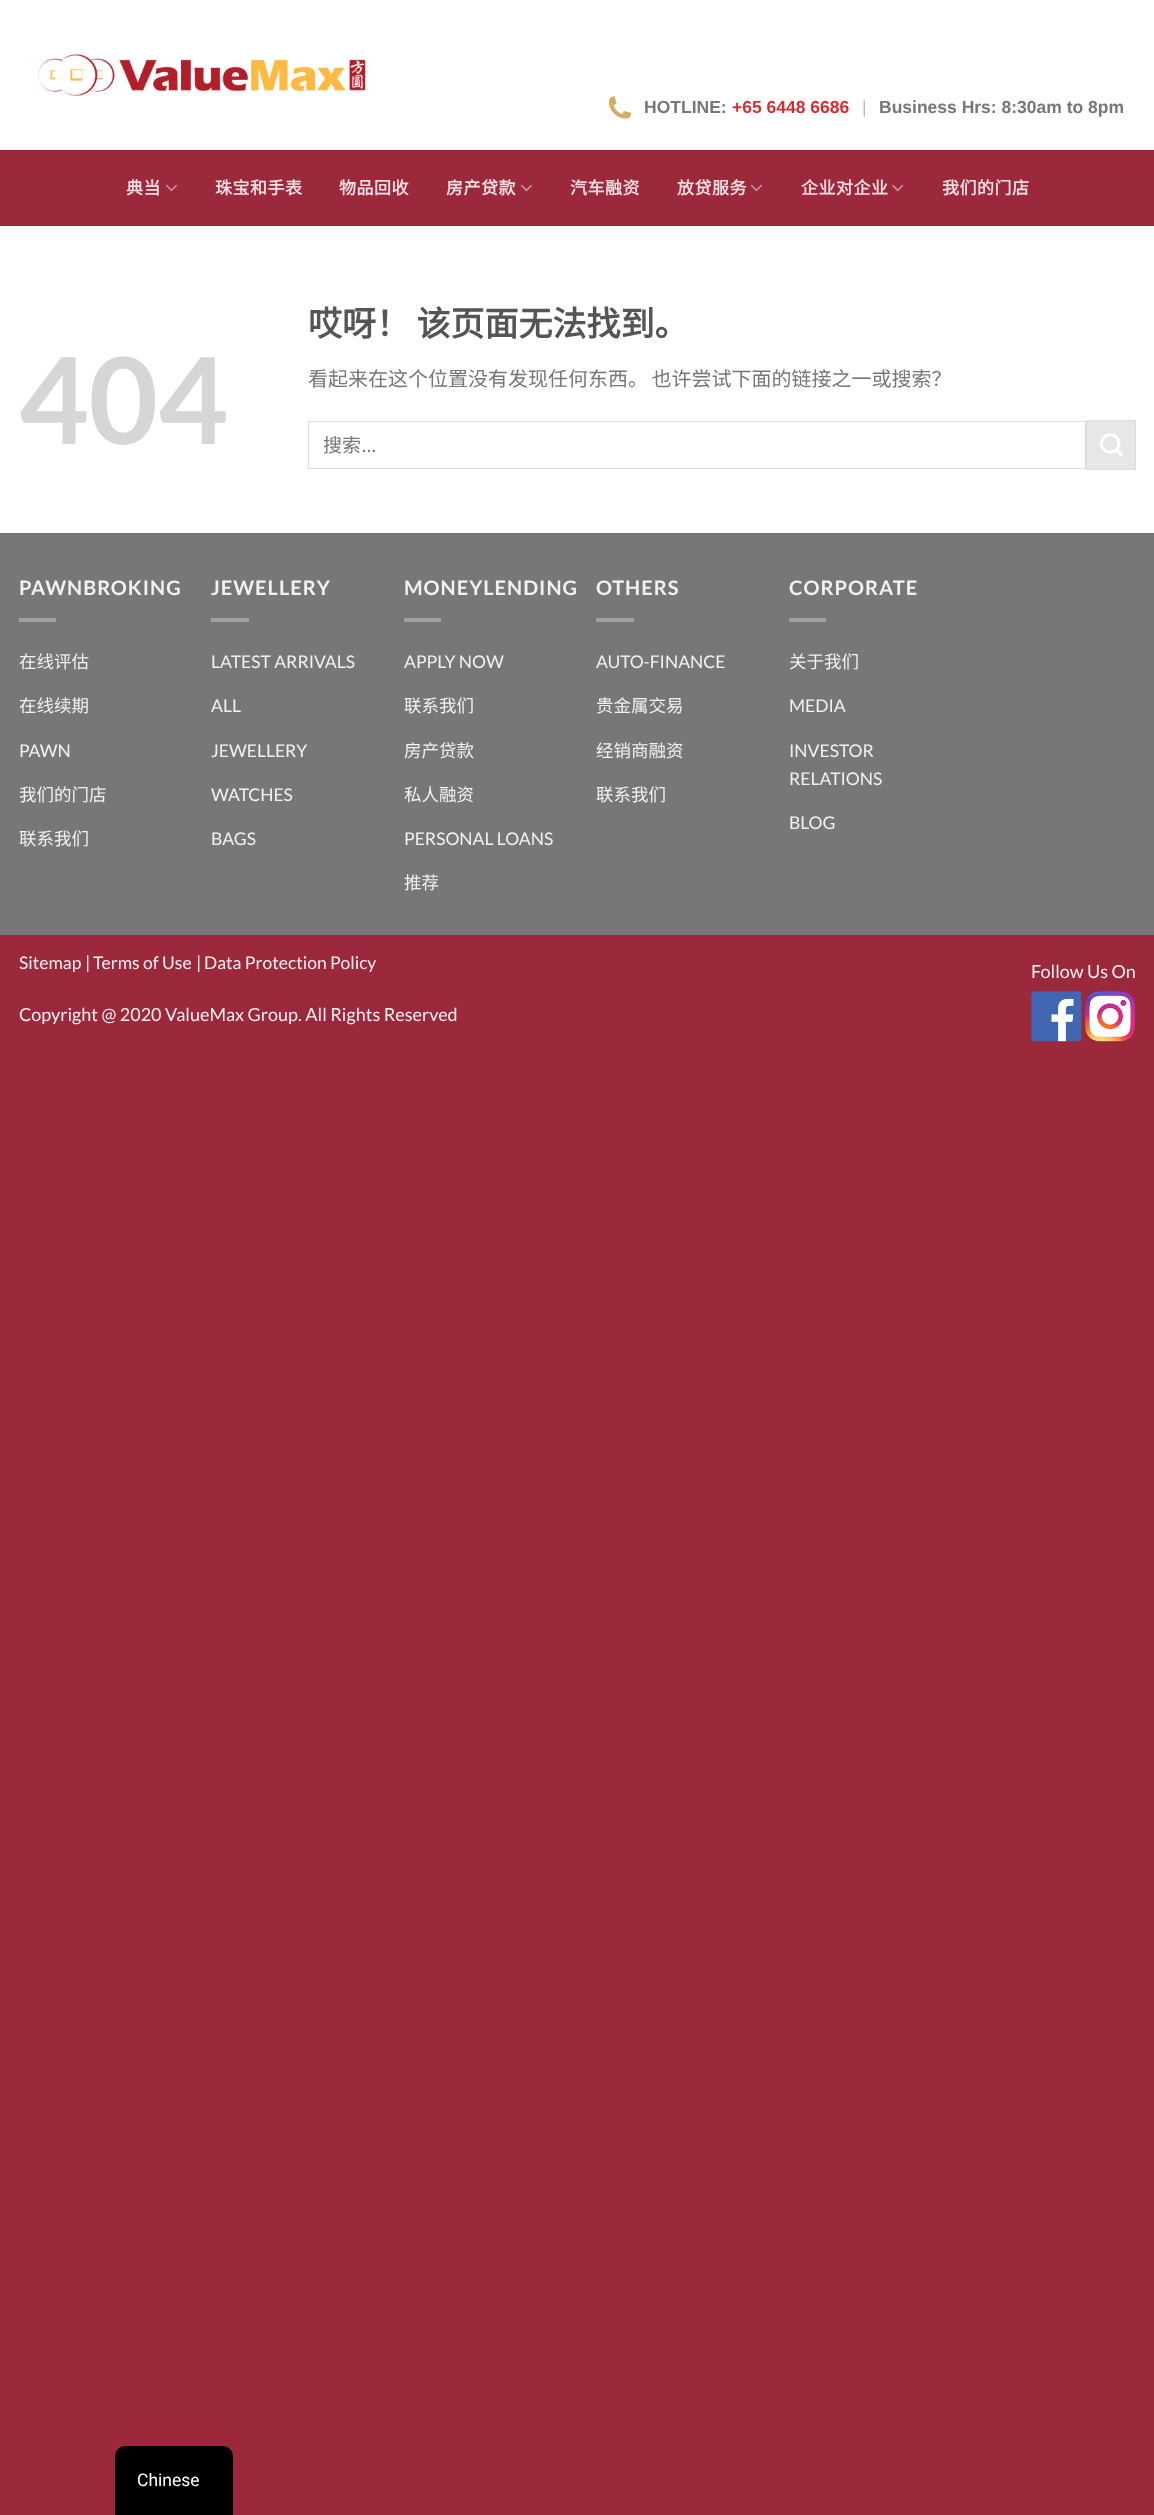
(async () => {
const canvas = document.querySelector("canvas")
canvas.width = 1154
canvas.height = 2515
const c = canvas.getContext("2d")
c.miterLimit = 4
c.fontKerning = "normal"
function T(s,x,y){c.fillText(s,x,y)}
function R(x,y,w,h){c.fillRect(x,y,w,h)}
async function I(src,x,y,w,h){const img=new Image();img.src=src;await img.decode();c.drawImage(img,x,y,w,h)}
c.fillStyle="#9c283b"
R(0,0,1154,2515)
c.fillStyle="#fff"
R(0,0,1154,533)
await I("1.png",38,54,328,42)
await I("2.png",608,96,24,23)
c.font="bold 17.5px Liberation Sans"
c.fillStyle="#777"
T("HOTLINE:",644,113)
c.fillStyle="#d32f2f"
T("+65 6448 6686",732,113)
c.font="17.5px Liberation Sans"
c.fillStyle="#bbb"
T("|",862,113)
c.font="bold 17.5px Liberation Sans"
c.fillStyle="#777"
T("Business Hrs: 8:30am to 8pm",879,113)
c.fillStyle="#9c283b"
R(0,150,1154,76)
c.letterSpacing="0.5px"
c.font="bold 17px Noto Sans CJK SC"
c.fillStyle="#f0dfe2"
T("典当",126,194)
await I("3.png",165,184,12,8)
T("珠宝和手表",215,194)
T("物品回收",339,194)
T("房产贷款",446,194)
await I("3.png",520,184,12,8)
T("汽车融资",570,194)
T("放贷服务",677,194)
await I("3.png",750,184,12,8)
T("企业对企业",801,194)
await I("4.png",892,184,12,8)
T("我们的门店",942,194)
c.letterSpacing="0px"
c.font="bold 120px Lato"
c.fillStyle="#d6d6d6"
T("404",19,444)
c.wordSpacing="-1px"
c.font="bold 34px Noto Sans CJK SC"
c.fillStyle="#555"
T("哎呀！ 该页面无法找到。",308,336)
c.font="20px Noto Sans CJK SC"
c.fillStyle="#777"
T("看起来在这个位置没有发现任何东西。 也许尝试下面的链接之一或搜索？",308,386)
c.strokeStyle="#ddd"
c.strokeRect(308.5,421.5,777,47)
c.wordSpacing="0px"
c.font="19px Noto Sans CJK SC"
T("搜索",323,452)
c.font="19px Lato"
T("…",362,452)
c.fillStyle="#e7e7e7"
c.beginPath()
c.rect(1086.5,420.5,49,49)
c.fill()
c.strokeStyle="#dbdbdb"
c.stroke()
await I("5.png",1100,433,24,24)
c.fillStyle="#777"
R(0,534,1154,401)
c.fillStyle="#717171"
R(0,533,1154,1)
c.letterSpacing="1px"
c.font="bold 20px Lato"
c.fillStyle="#f1f1f1"
T("PAWNBROKING",19,595)
c.fillStyle="#a0a0a0"
R(19,618,37,4)
c.letterSpacing="0px"
c.font="17.5px Noto Sans CJK SC"
c.fillStyle="#f1f1f1"
T("在线评估",19,668)
T("在线续期",19,712)
c.font="17.5px Lato"
T("PAWN",19,757)
c.font="17.5px Noto Sans CJK SC"
T("我们的门店",19,801)
T("联系我们",19,845)
c.letterSpacing="1px"
c.font="bold 20px Lato"
T("JEWELLERY",211,595)
c.fillStyle="#a0a0a0"
R(211,618,38,4)
c.letterSpacing="0px"
c.font="17.5px Lato"
c.fillStyle="#f1f1f1"
T("LATEST ARRIVALS",211,668)
T("ALL",211,712)
T("JEWELLERY",211,757)
T("WATCHES",211,801)
T("BAGS",211,845)
c.letterSpacing="1px"
c.font="bold 20px Lato"
T("MONEYLENDING",404,595)
c.fillStyle="#a0a0a0"
R(404,618,37,4)
c.letterSpacing="0px"
c.font="17.5px Lato"
c.fillStyle="#f1f1f1"
T("APPLY NOW",404,668)
c.font="17.5px Noto Sans CJK SC"
T("联系我们",404,712)
T("房产贷款",404,757)
T("私人融资",404,801)
c.font="17.5px Lato"
T("PERSONAL LOANS",404,845)
c.font="17.5px Noto Sans CJK SC"
T("推荐",404,889)
c.letterSpacing="1px"
c.font="bold 20px Lato"
T("OTHERS",596,595)
c.fillStyle="#a0a0a0"
R(596,618,38,4)
c.letterSpacing="0px"
c.font="17.5px Lato"
c.fillStyle="#f1f1f1"
T("AUTO-FINANCE",596,668)
c.font="17.5px Noto Sans CJK SC"
T("贵金属交易",596,712)
T("经销商融资",596,757)
T("联系我们",596,801)
c.letterSpacing="1px"
c.font="bold 20px Lato"
T("CORPORATE",789,595)
c.fillStyle="#a0a0a0"
R(789,618,37,4)
c.letterSpacing="0px"
c.font="17.5px Noto Sans CJK SC"
c.fillStyle="#f1f1f1"
T("关于我们",789,668)
c.font="17.5px Lato"
T("MEDIA",789,712)
T("INVESTOR",789,757)
T("RELATIONS",789,785)
T("BLOG",789,829)
T("Sitemap",19,969)
c.font="18px Lato"
T("|",85,969)
c.font="17.5px Lato"
T("Terms of Use",93,969)
c.font="18px Lato"
T("|",196,969)
c.font="17.5px Lato"
T("Data Protection Policy",204,969)
c.font="18px Lato"
T("Copyright @ 2020 ValueMax Group. All Rights Reserved",19,1021)
T("Follow Us On",1031,978)
await I("6.png",1031,991,51,51)
await I("7.png",1085,991,50,51)
c.fillStyle="#000"
c.beginPath()
c.roundRect(115,2446,118,69,[10,10,0,0])
c.fill()
c.font="17.5px Roboto"
c.fillStyle="#fff"
T("Chinese",137,2486)
})()
